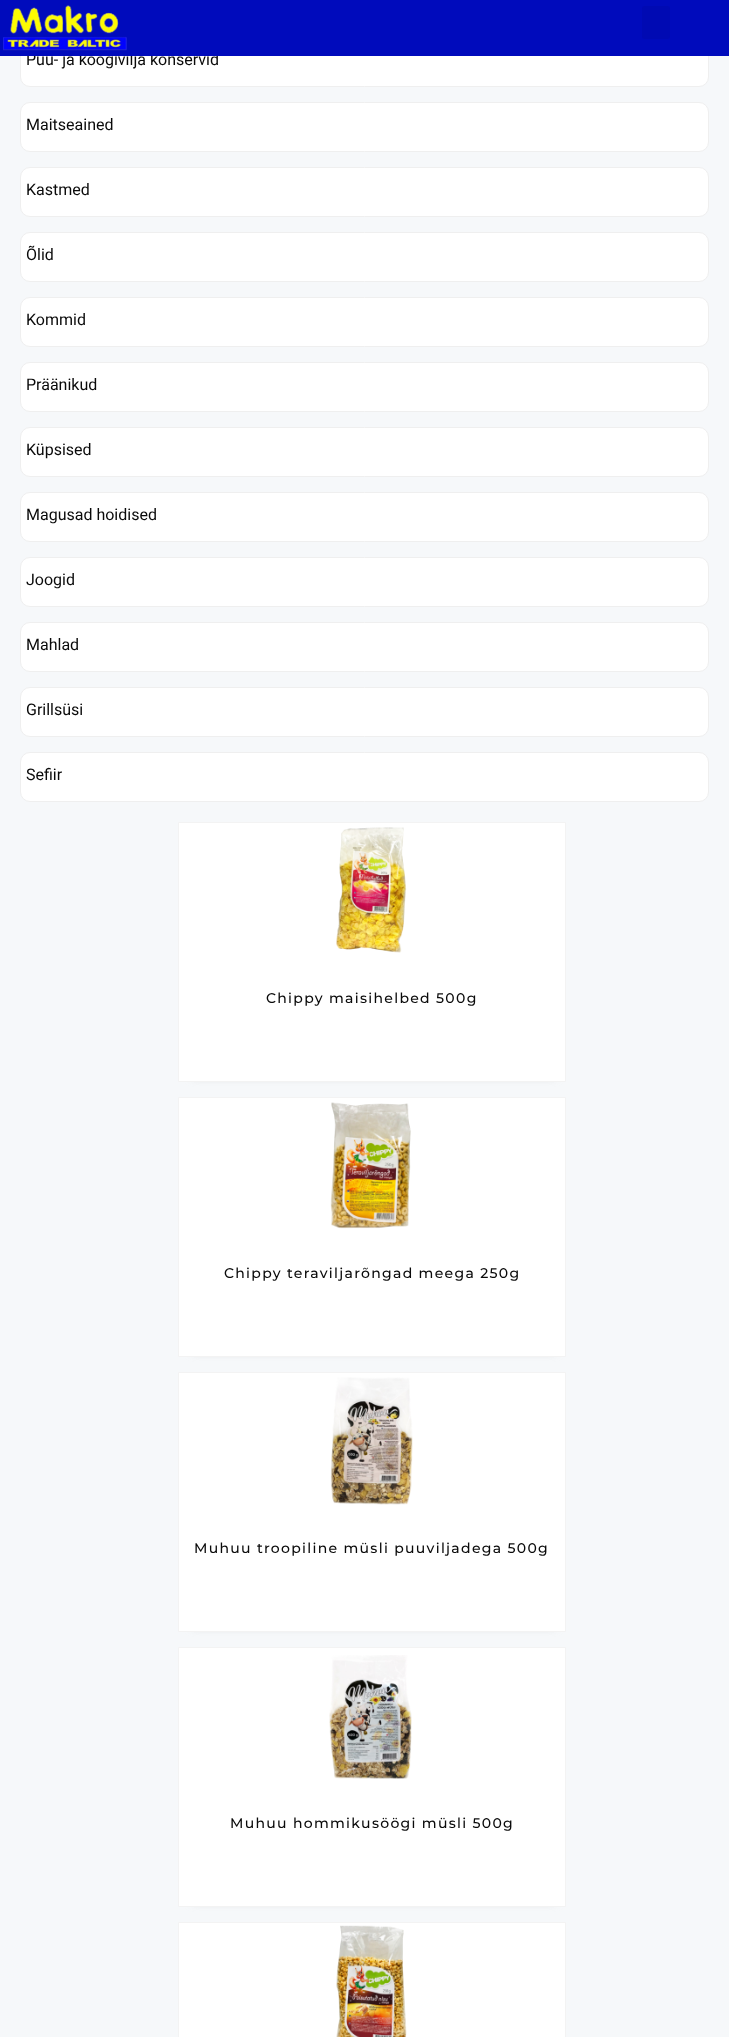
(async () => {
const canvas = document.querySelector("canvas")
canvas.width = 729
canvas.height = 2037
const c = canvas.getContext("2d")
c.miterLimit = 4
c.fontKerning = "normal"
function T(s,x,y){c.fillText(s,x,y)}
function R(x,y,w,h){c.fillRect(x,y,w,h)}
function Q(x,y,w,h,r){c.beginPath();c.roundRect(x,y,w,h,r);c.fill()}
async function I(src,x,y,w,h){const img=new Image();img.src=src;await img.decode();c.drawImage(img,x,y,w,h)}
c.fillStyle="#f6f8fa"
R(0,0,729,2037)
c.fillStyle="#fff"
c.beginPath()
c.roundRect(20.5,37.5,688,49,9.5)
c.fill()
c.strokeStyle="#efefef"
c.stroke()
c.font="16px Roboto"
c.fillStyle="#0a0a0a"
T("Puu- ja köögivilja konservid",26,65)
c.fillStyle="#000bbc"
R(0,0,729,56)
await I("1.png",3,5,124,46)
c.fillStyle="#000ab3"
Q(642,6,28,33,3)
c.fillStyle="#fff"
c.beginPath()
c.roundRect(20.5,102.5,688,49,9.5)
c.fill()
c.stroke()
c.fillStyle="#0a0a0a"
T("Maitseained",26,130)
c.fillStyle="#fff"
c.beginPath()
c.roundRect(20.5,167.5,688,49,9.5)
c.fill()
c.stroke()
c.fillStyle="#0a0a0a"
T("Kastmed",26,195)
c.fillStyle="#fff"
c.beginPath()
c.roundRect(20.5,232.5,688,49,9.5)
c.fill()
c.stroke()
c.fillStyle="#0a0a0a"
T("Õlid",26,260)
c.fillStyle="#fff"
c.beginPath()
c.roundRect(20.5,297.5,688,49,9.5)
c.fill()
c.stroke()
c.fillStyle="#0a0a0a"
T("Kommid",26,325)
c.fillStyle="#fff"
c.beginPath()
c.roundRect(20.5,362.5,688,49,9.5)
c.fill()
c.stroke()
c.fillStyle="#0a0a0a"
T("Präänikud",26,390)
c.fillStyle="#fff"
c.beginPath()
c.roundRect(20.5,427.5,688,49,9.5)
c.fill()
c.stroke()
c.fillStyle="#0a0a0a"
T("Küpsised",26,455)
c.fillStyle="#fff"
c.beginPath()
c.roundRect(20.5,492.5,688,49,9.5)
c.fill()
c.stroke()
c.fillStyle="#0a0a0a"
T("Magusad hoidised",26,520)
c.fillStyle="#fff"
c.beginPath()
c.roundRect(20.5,557.5,688,49,9.5)
c.fill()
c.stroke()
c.fillStyle="#0a0a0a"
T("Joogid",26,585)
c.fillStyle="#fff"
c.beginPath()
c.roundRect(20.5,622.5,688,49,9.5)
c.fill()
c.stroke()
c.fillStyle="#0a0a0a"
T("Mahlad",26,650)
c.fillStyle="#fff"
c.beginPath()
c.roundRect(20.5,687.5,688,49,9.5)
c.fill()
c.stroke()
c.fillStyle="#0a0a0a"
T("Grillsüsi",26,715)
c.fillStyle="#fff"
c.beginPath()
c.roundRect(20.5,752.5,688,49,9.5)
c.fill()
c.stroke()
c.fillStyle="#0a0a0a"
T("Sefiir",26,780)
c.fillStyle="#afafaf99"
c.filter="blur(4px)"
c.beginPath()
c.rect(192,841,364,236)
c.fill()
c.filter="none"
c.fillStyle="#fff"
c.beginPath()
c.rect(178.5,822.5,387,259)
c.fill()
c.strokeStyle="#f3f3f3"
c.stroke()
await I("2.png",336,827,71,126)
c.letterSpacing="1.3px"
c.font="500 14px Montserrat"
c.fillStyle="#0a0a0a"
T("Chippy maisihelbed 500g",266,1003)
c.fillStyle="#afafaf99"
c.filter="blur(4px)"
c.beginPath()
c.rect(192,1116,364,236)
c.fill()
c.filter="none"
c.fillStyle="#fff"
c.beginPath()
c.rect(178.5,1097.5,387,259)
c.fill()
c.stroke()
await I("3.png",330,1102,81,127)
c.fillStyle="#0a0a0a"
T("Chippy teraviljarõngad meega 250g",224,1278)
c.fillStyle="#afafaf99"
c.filter="blur(4px)"
c.beginPath()
c.rect(192,1391,364,236)
c.fill()
c.filter="none"
c.fillStyle="#fff"
c.beginPath()
c.rect(178.5,1372.5,387,259)
c.fill()
c.stroke()
await I("4.png",330,1377,83,128)
c.fillStyle="#0a0a0a"
T("Muhuu troopiline müsli puuviljadega 500g",194,1553)
c.fillStyle="#afafaf99"
c.filter="blur(4px)"
c.beginPath()
c.rect(192,1666,364,236)
c.fill()
c.filter="none"
c.fillStyle="#fff"
c.beginPath()
c.rect(178.5,1647.5,387,259)
c.fill()
c.stroke()
await I("5.png",329,1655,83,124)
c.fillStyle="#0a0a0a"
T("Muhuu hommikusöögi müsli 500g",230,1828)
c.fillStyle="#fff"
c.beginPath()
c.rect(178.5,1922.5,387,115)
c.fill()
c.stroke()
await I("6.png",336,1925,71,112)
})()
